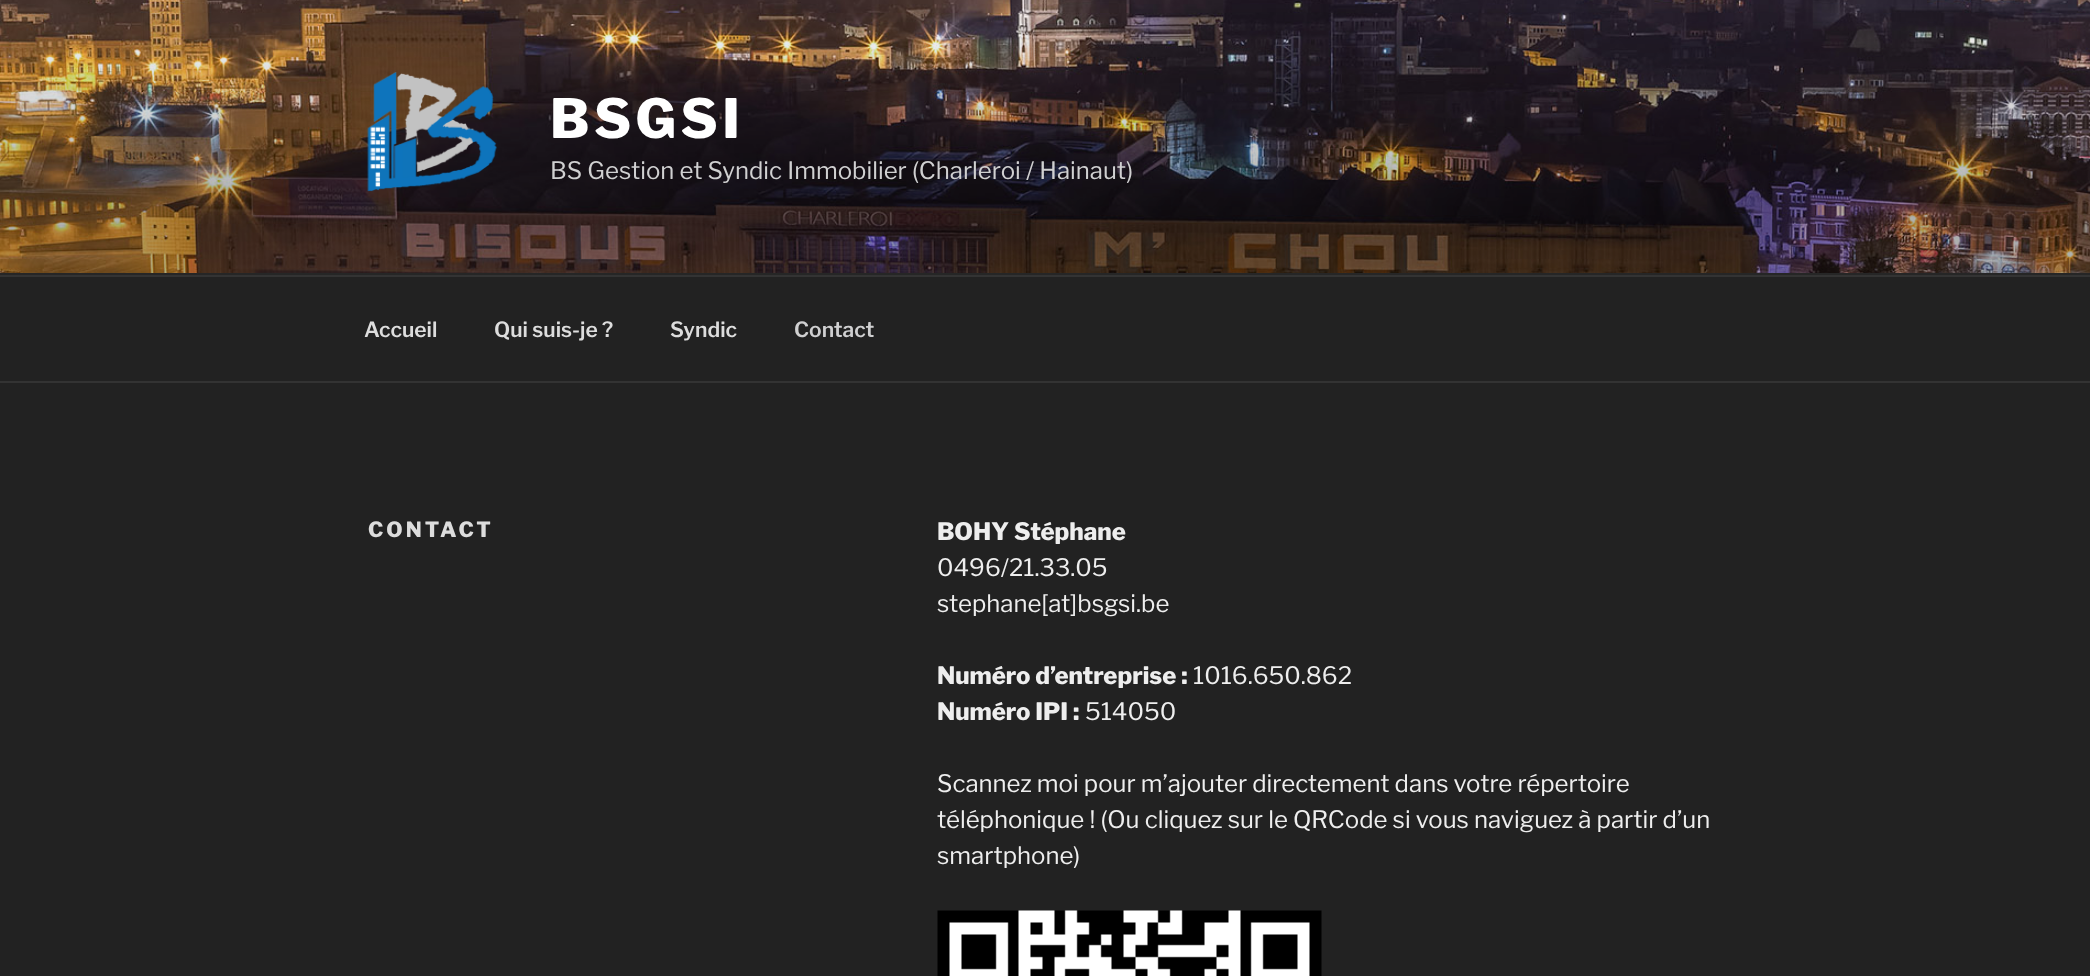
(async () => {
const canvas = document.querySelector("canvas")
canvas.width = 2090
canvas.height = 976
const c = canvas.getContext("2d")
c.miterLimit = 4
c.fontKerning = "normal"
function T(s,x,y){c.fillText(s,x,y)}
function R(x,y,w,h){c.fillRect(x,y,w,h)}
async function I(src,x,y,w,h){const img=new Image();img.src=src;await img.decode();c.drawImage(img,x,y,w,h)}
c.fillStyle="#222"
R(0,0,2090,976)
c.fillStyle="#262626"
R(0,273,2090,2)
await I("1.png",0,0,2090,273)
await I("2.png",367,72,130,120)
c.letterSpacing="4.5px"
c.font="100 54px Libre Franklin"
c.fillStyle="#fff"
T("BSGSI",550,138)
c.letterSpacing="0px"
c.font="100 24px 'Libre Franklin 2'"
c.fillStyle="#d0d0d1"
T("BS Gestion et Syndic Immobilier (Charleroi / Hainaut)",550,179)
c.fillStyle="#333"
R(0,275,2090,2)
R(0,381,2090,2)
c.font="100 21px 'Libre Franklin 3'"
c.fillStyle="#ddd"
T("Accueil",364,337)
T("Qui suis-je ?",494,337)
T("Syndic",670,337)
c.fillStyle="#d0d0d1"
T("Contact",794,337)
c.letterSpacing="3px"
c.font="100 21px Libre Franklin"
c.fillStyle="#ddd"
T("CONTACT",368,537)
c.letterSpacing="0px"
c.font="100 24px Libre Franklin"
c.fillStyle="#eee"
T("BOHY Stéphane",937,540)
c.font="100 24px 'Libre Franklin 2'"
T("0496/21.33.05",937,576)
T("stephane[at]bsgsi.be",937,612)
c.font="100 24px Libre Franklin"
T("Numéro d’entreprise :",937,684)
c.font="100 24px 'Libre Franklin 2'"
T("1016.650.862",1193,684)
c.font="100 24px Libre Franklin"
T("Numéro IPI :",937,720)
c.font="100 24px 'Libre Franklin 2'"
T("514050",1085,720)
T("Scannez moi pour m’ajouter directement dans votre répertoire",937,792)
T("téléphonique ! (Ou cliquez sur le QRCode si vous naviguez à partir d’un",937,828)
T("smartphone)",937,864)
await I("3.png",937,910,385,66)
})()
